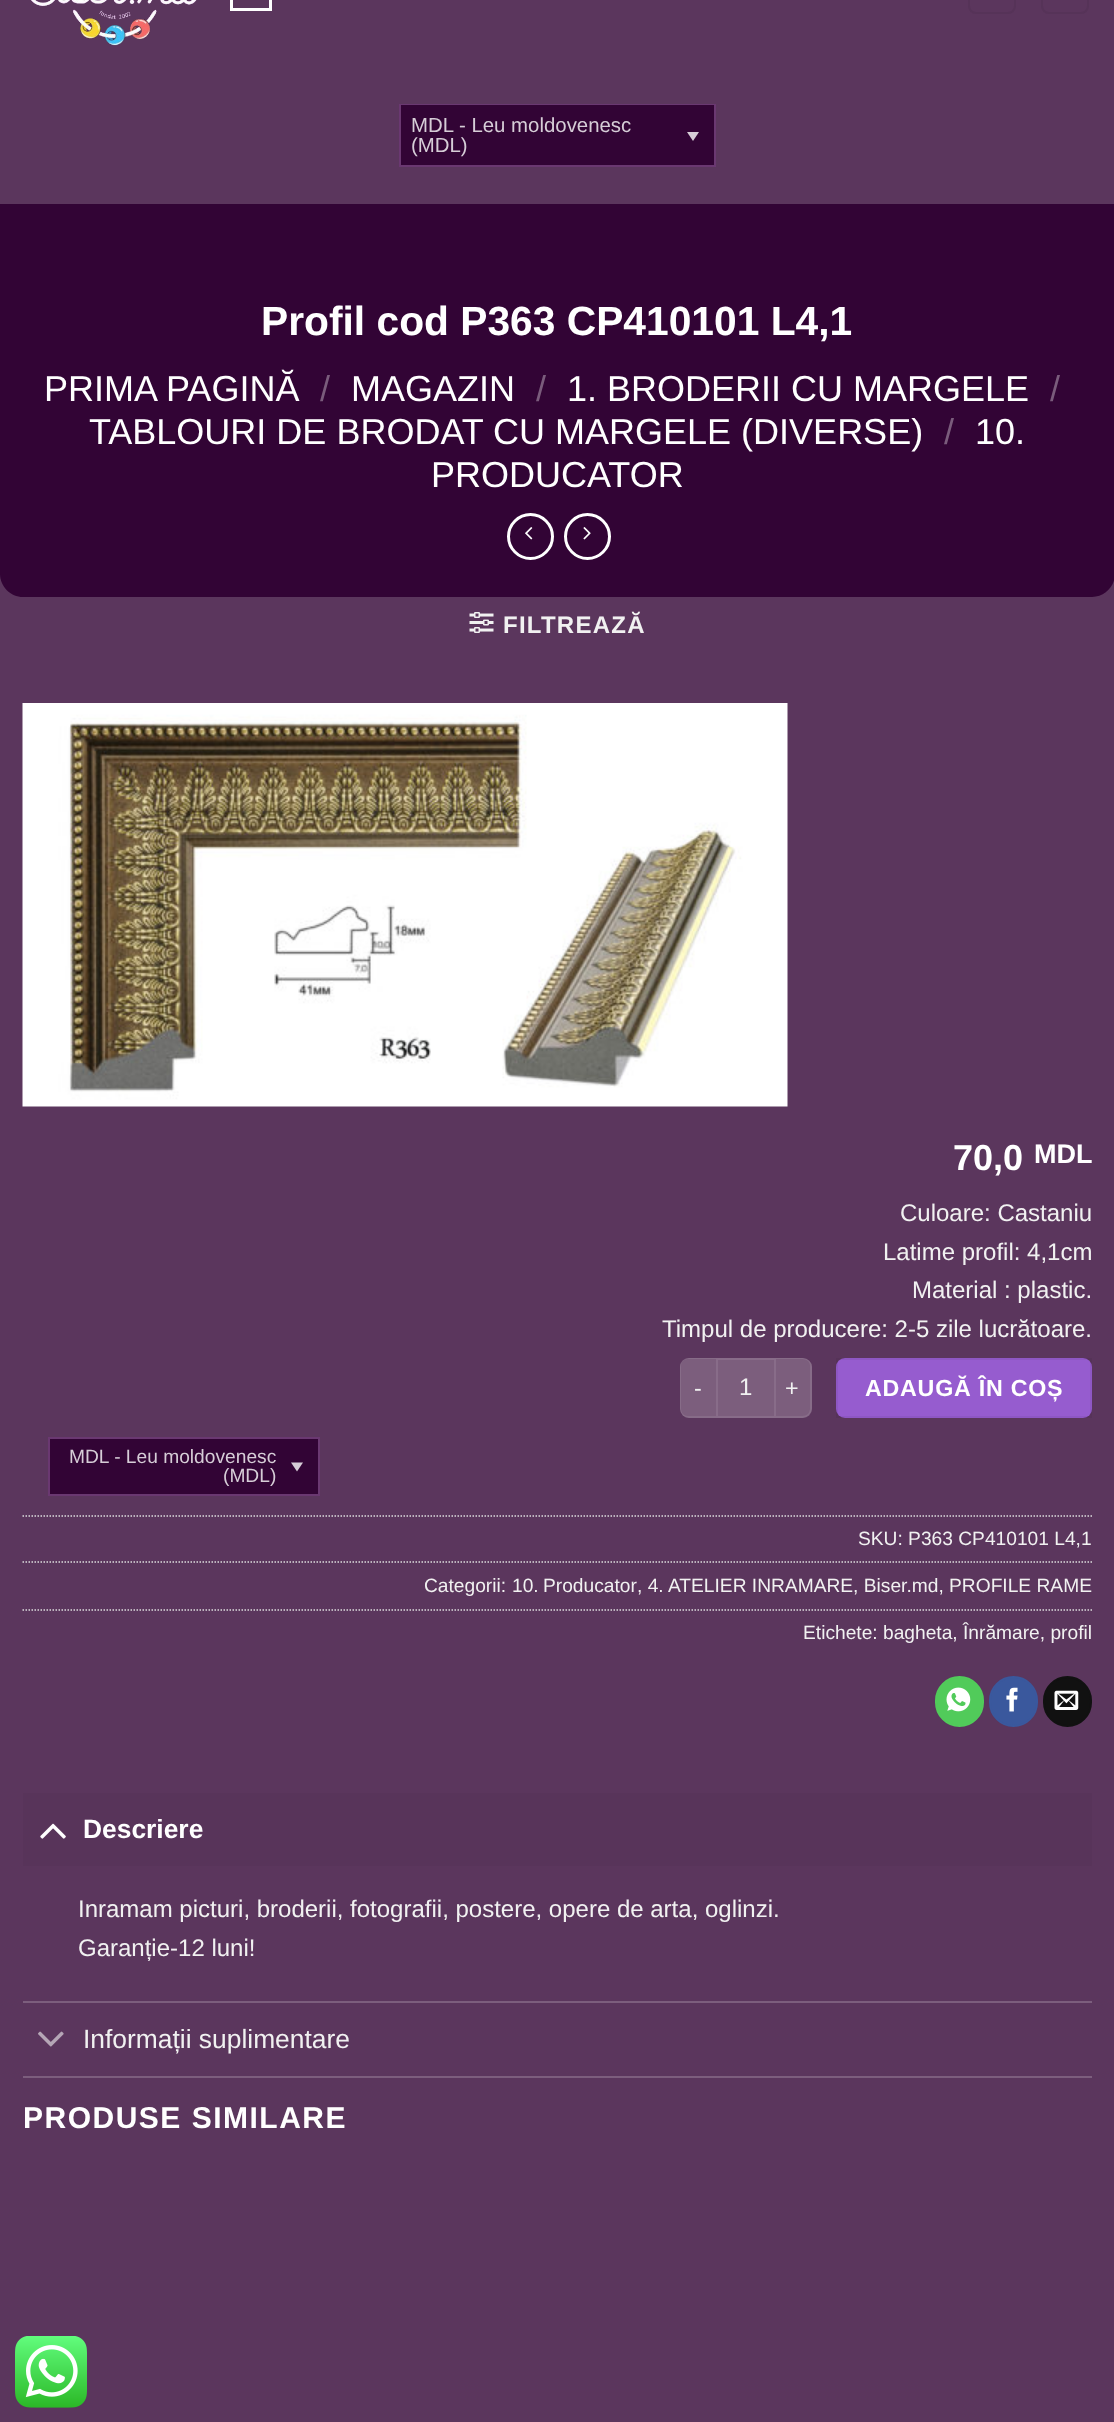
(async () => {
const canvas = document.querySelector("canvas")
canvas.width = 1114
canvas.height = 2422
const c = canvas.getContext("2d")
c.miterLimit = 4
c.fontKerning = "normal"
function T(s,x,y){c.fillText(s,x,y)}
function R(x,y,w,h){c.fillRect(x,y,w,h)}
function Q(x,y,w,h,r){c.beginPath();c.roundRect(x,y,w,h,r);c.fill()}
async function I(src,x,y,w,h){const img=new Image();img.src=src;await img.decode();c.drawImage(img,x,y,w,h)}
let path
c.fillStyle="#5b365d"
R(0,0,1114,2422)
await I("1.png",31,0,166,46)
c.strokeStyle="#fff"
c.lineWidth=3
c.strokeRect(231.5,-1.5,39,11)
c.beginPath()
c.roundRect(969,-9,46,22,7)
c.strokeStyle="#563358"
c.lineWidth=2
c.stroke()
c.beginPath()
c.roundRect(1042,-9,46,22,7)
c.stroke()
c.strokeStyle="#6a3871"
c.strokeRect(400,105,315,61)
c.fillStyle="#320435"
R(401,105,313,60)
c.font="20.4px Liberation Sans"
c.fillStyle="#d6cdd7"
T("MDL - Leu moldovenesc",411,132)
T("(MDL)",411,152)
path = new Path2D("M687 132h12l-6 9z")
c.fill(path)
c.fillStyle="#320435"
path = new Path2D("M0 204h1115v370c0 12.5-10.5 23-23 23h-1069c-12.5 0-23-10.5-23-23z")
c.fill(path)
c.font="bold 40.75px Liberation Sans"
c.fillStyle="#fff"
T("Profil cod P363 CP410101 L4,1",261,335)
c.font="36px Liberation Sans"
T("PRIMA PAGINĂ",44,401)
c.fillStyle="#7a5c7c"
T("/",320,401)
c.fillStyle="#fff"
T("MAGAZIN",351,401)
c.fillStyle="#7a5c7c"
T("/",536,401)
c.fillStyle="#fff"
T("1. BRODERII CU MARGELE",567,401)
c.fillStyle="#7a5c7c"
T("/",1050,401)
c.fillStyle="#fff"
T("TABLOURI DE BRODAT CU MARGELE (DIVERSE)",89,444)
c.fillStyle="#7a5c7c"
T("/",944,444)
c.fillStyle="#fff"
T("10.",975,444)
T("PRODUCATOR",431,487)
c.beginPath()
c.arc(530.5,536.5,22,0,7)
c.strokeStyle="#fff"
c.lineWidth=3
c.stroke()
await I("2.png",525,527,8,13)
c.beginPath()
c.arc(587.5,536.5,22,0,7)
c.stroke()
await I("3.png",583,527,8,13)
await I("4.png",469,612,25,21)
c.letterSpacing="1.25px"
c.font="bold 24px Liberation Sans"
c.fillStyle="#f1f1f1"
T("FILTREAZĂ",503,633)
await I("5.png",22,703,766,404)
c.letterSpacing="0px"
c.font="bold 36px Liberation Sans"
c.fillStyle="#fff"
T("70,0",953,1170)
c.font="bold 27px Liberation Sans"
T("MDL",1034,1163)
c.font="24px Liberation Sans"
c.fillStyle="#f1f1f1"
T("Culoare: Castaniu",900,1221)
T("Latime profil: 4,1cm",883,1260)
T("Material : plastic.",912,1298)
T("Timpul de producere: 2-5 zile lucrătoare.",662,1337)
c.fillStyle="#7c5e7d"
c.beginPath()
c.roundRect(680,1358,36,60,[9,0,0,9])
c.fill()
c.fillStyle="#ffffff17"
path = new Path2D("M688 1358h28v60h-28c-4 0-8-5-8-10v-42c0-4 4-8 8-8zm0 1h28v57h-28c-4 0-7-3-7-8v-42c0-4 3-7 7-7z")
c.fill(path,"evenodd")
c.letterSpacing="0.75px"
c.font="23.25px Liberation Sans"
c.fillStyle="#f1f1f1"
T("-",694,1396)
c.fillStyle="#7c5e7d"
c.beginPath()
c.rect(717,1359,58,58)
c.fill()
c.strokeStyle="#886c89"
c.lineWidth=2
c.stroke()
c.letterSpacing="0px"
c.font="24px Liberation Sans"
c.fillStyle="#f1f1f1"
T("1",739,1395)
c.fillStyle="#7c5e7d"
c.beginPath()
c.roundRect(776,1358,36,60,[0,9,9,0])
c.fill()
c.fillStyle="#ffffff17"
path = new Path2D("M776 1358h26c5 0 10 4 10 8v42c0 5-5 10-10 10h-26zm0 1h26c5 0 8 3 8 7v42c0 5-3 8-8 8h-26z")
c.fill(path,"evenodd")
c.letterSpacing="0.75px"
c.font="23.25px Liberation Sans"
c.fillStyle="#f1f1f1"
T("+",785,1396)
c.fillStyle="#965ccf"
Q(836,1358,256,60,9)
c.strokeStyle="#0000000d"
c.strokeRect(837,1359,254,58)
c.font="bold 23.25px Liberation Sans"
c.fillStyle="#fff"
T("ADAUGĂ ÎN COȘ",865,1396)
c.strokeStyle="#6a3871"
c.strokeRect(49,1438,270,57)
c.fillStyle="#320435"
R(50,1439,268,55)
c.letterSpacing="0px"
c.font="19.2px Liberation Sans"
c.fillStyle="#d6cdd7"
T("MDL - Leu moldovenesc",69,1463)
path = new Path2D("M291 1462.5h12l-6 9z")
c.fill(path)
T("(MDL)",223,1482)
path = new Path2D("M22.5 1516h1069.5")
c.strokeStyle="#ddd"
c.lineWidth=1.5
c.setLineDash([1.5,1.5])
c.stroke(path)
c.fillStyle="#f1f1f1"
T("SKU: P363 CP410101 L4,1",858,1545)
path = new Path2D("M22.5 1562h1069.5")
c.stroke(path)
T("Categorii:",424,1592)
c.wordSpacing="-1px"
T("10. Producator",512,1592)
c.wordSpacing="0px"
T(", 4. ATELIER INRAMARE, Biser.md, PROFILE RAME",637,1592)
path = new Path2D("M22.5 1610h1069.5")
c.stroke(path)
T("Etichete: bagheta, Înrămare, profil",803,1639)
c.fillStyle="#51cb5a"
c.beginPath()
c.roundRect(936,1677,47,49,23.5)
c.fill()
c.strokeStyle="#51cb5a"
c.lineWidth=2
c.setLineDash([])
c.stroke()
await I("6.png",946,1687,25,25)
c.fillStyle="#3a589d"
c.beginPath()
c.roundRect(990,1677,47,49,23.5)
c.fill()
c.strokeStyle="#3a589d"
c.stroke()
await I("7.png",1006,1687,12,25)
c.fillStyle="#111"
c.beginPath()
c.roundRect(1044,1677,47,49,23.5)
c.fill()
c.strokeStyle="#111"
c.stroke()
await I("8.png",1054,1690,25,20)
c.fillStyle="#58345a"
R(23,1793,1069,73)
await I("9.png",40,1823,26,16)
c.font="bold 26.4px Liberation Sans"
c.fillStyle="#fff"
T("Descriere",83,1838)
c.font="24px Liberation Sans"
c.fillStyle="#f1f1f1"
T("Inramam picturi, broderii, fotografii, postere, opere de arta, oglinzi.",78,1917)
T("Garanție-12 luni!",78,1956)
c.fillStyle="#7c5e7d"
R(23,2001,1069,2)
await I("10.png",38,2031,26,16)
c.font="26.4px Liberation Sans"
c.fillStyle="#f1f1f1"
T("Informații suplimentare",83,2048)
c.fillStyle="#7c5e7d"
R(23,2076,1069,2)
c.letterSpacing="1.5px"
c.font="bold 30px Liberation Sans"
c.fillStyle="#fff"
T("PRODUSE SIMILARE",23,2128)
await I("11.png",15,2336,72,72)
})()
